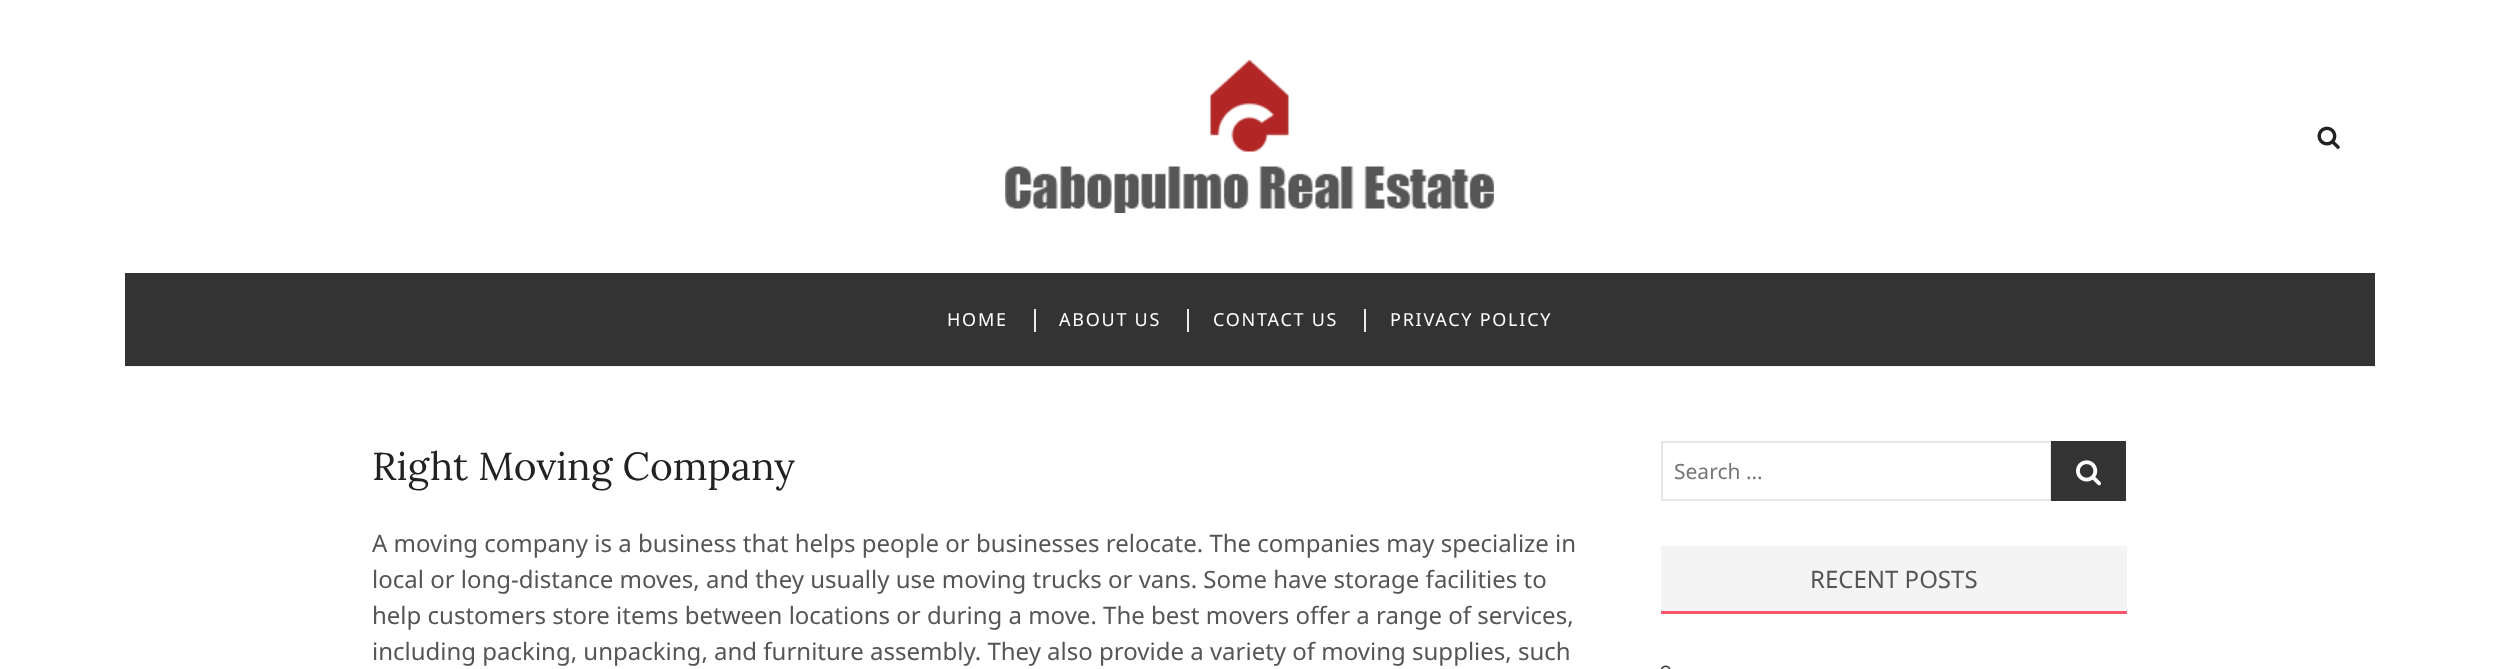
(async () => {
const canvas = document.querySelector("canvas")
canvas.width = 2498
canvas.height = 669
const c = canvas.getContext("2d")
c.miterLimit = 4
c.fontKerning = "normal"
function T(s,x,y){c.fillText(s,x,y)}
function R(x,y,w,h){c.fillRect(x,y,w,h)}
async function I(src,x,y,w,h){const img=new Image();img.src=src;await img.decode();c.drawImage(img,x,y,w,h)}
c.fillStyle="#fff"
R(0,0,2498,669)
c.fillStyle="#f2f2f2"
R(125,366,2250,1)
await I("1.png",1005,60,489,153)
await I("2.png",2317,126,23,23)
c.fillStyle="#333"
R(125,275,2250,90)
c.fillStyle="#303030"
R(125,365,2250,1)
R(125,273,2250,2)
c.letterSpacing="1.75px"
c.font="18px Noto Sans"
c.fillStyle="#fff"
T("HOME",947,326)
c.fillStyle="#eaeaeb"
R(1034,309,2,23)
c.fillStyle="#fff"
T("ABOUT US",1059,326)
c.fillStyle="#eaeaeb"
R(1187,309,2,23)
c.fillStyle="#fff"
T("CONTACT US",1213,326)
c.fillStyle="#eaeaeb"
R(1364,309,2,23)
c.fillStyle="#fff"
T("PRIVACY POLICY",1390,326)
c.letterSpacing="0px"
c.font="39px Lora"
c.fillStyle="#222"
T("Right Moving Company",372,480)
c.font="24px Noto Sans"
c.fillStyle="#555"
T("A moving company is a business that helps people or businesses relocate. The companies may specialize in",372,552)
T("local or long-distance moves, and they usually use moving trucks or vans. Some have storage facilities to",372,588)
T("help customers store items between locations or during a move. The best movers offer a range of services,",372,624)
T("including packing, unpacking, and furniture assembly. They also provide a variety of moving supplies, such",372,660)
c.strokeStyle="#e6e6e6"
c.lineWidth=2
c.strokeRect(1662,442,389,58)
c.font="21px Noto Sans"
c.fillStyle="#757575"
T("Search …",1674,479)
c.fillStyle="#333"
R(2051,441,75,60)
await I("3.png",2076,460,26,26)
c.fillStyle="#f4f4f4"
R(1661,546,466,65)
c.font="24px Noto Sans"
c.fillStyle="#555"
T("RECENT POSTS",1810,588)
c.fillStyle="#f9556d"
R(1661,611,466,3)
await I("4.png",1660,665,11,4)
})()
